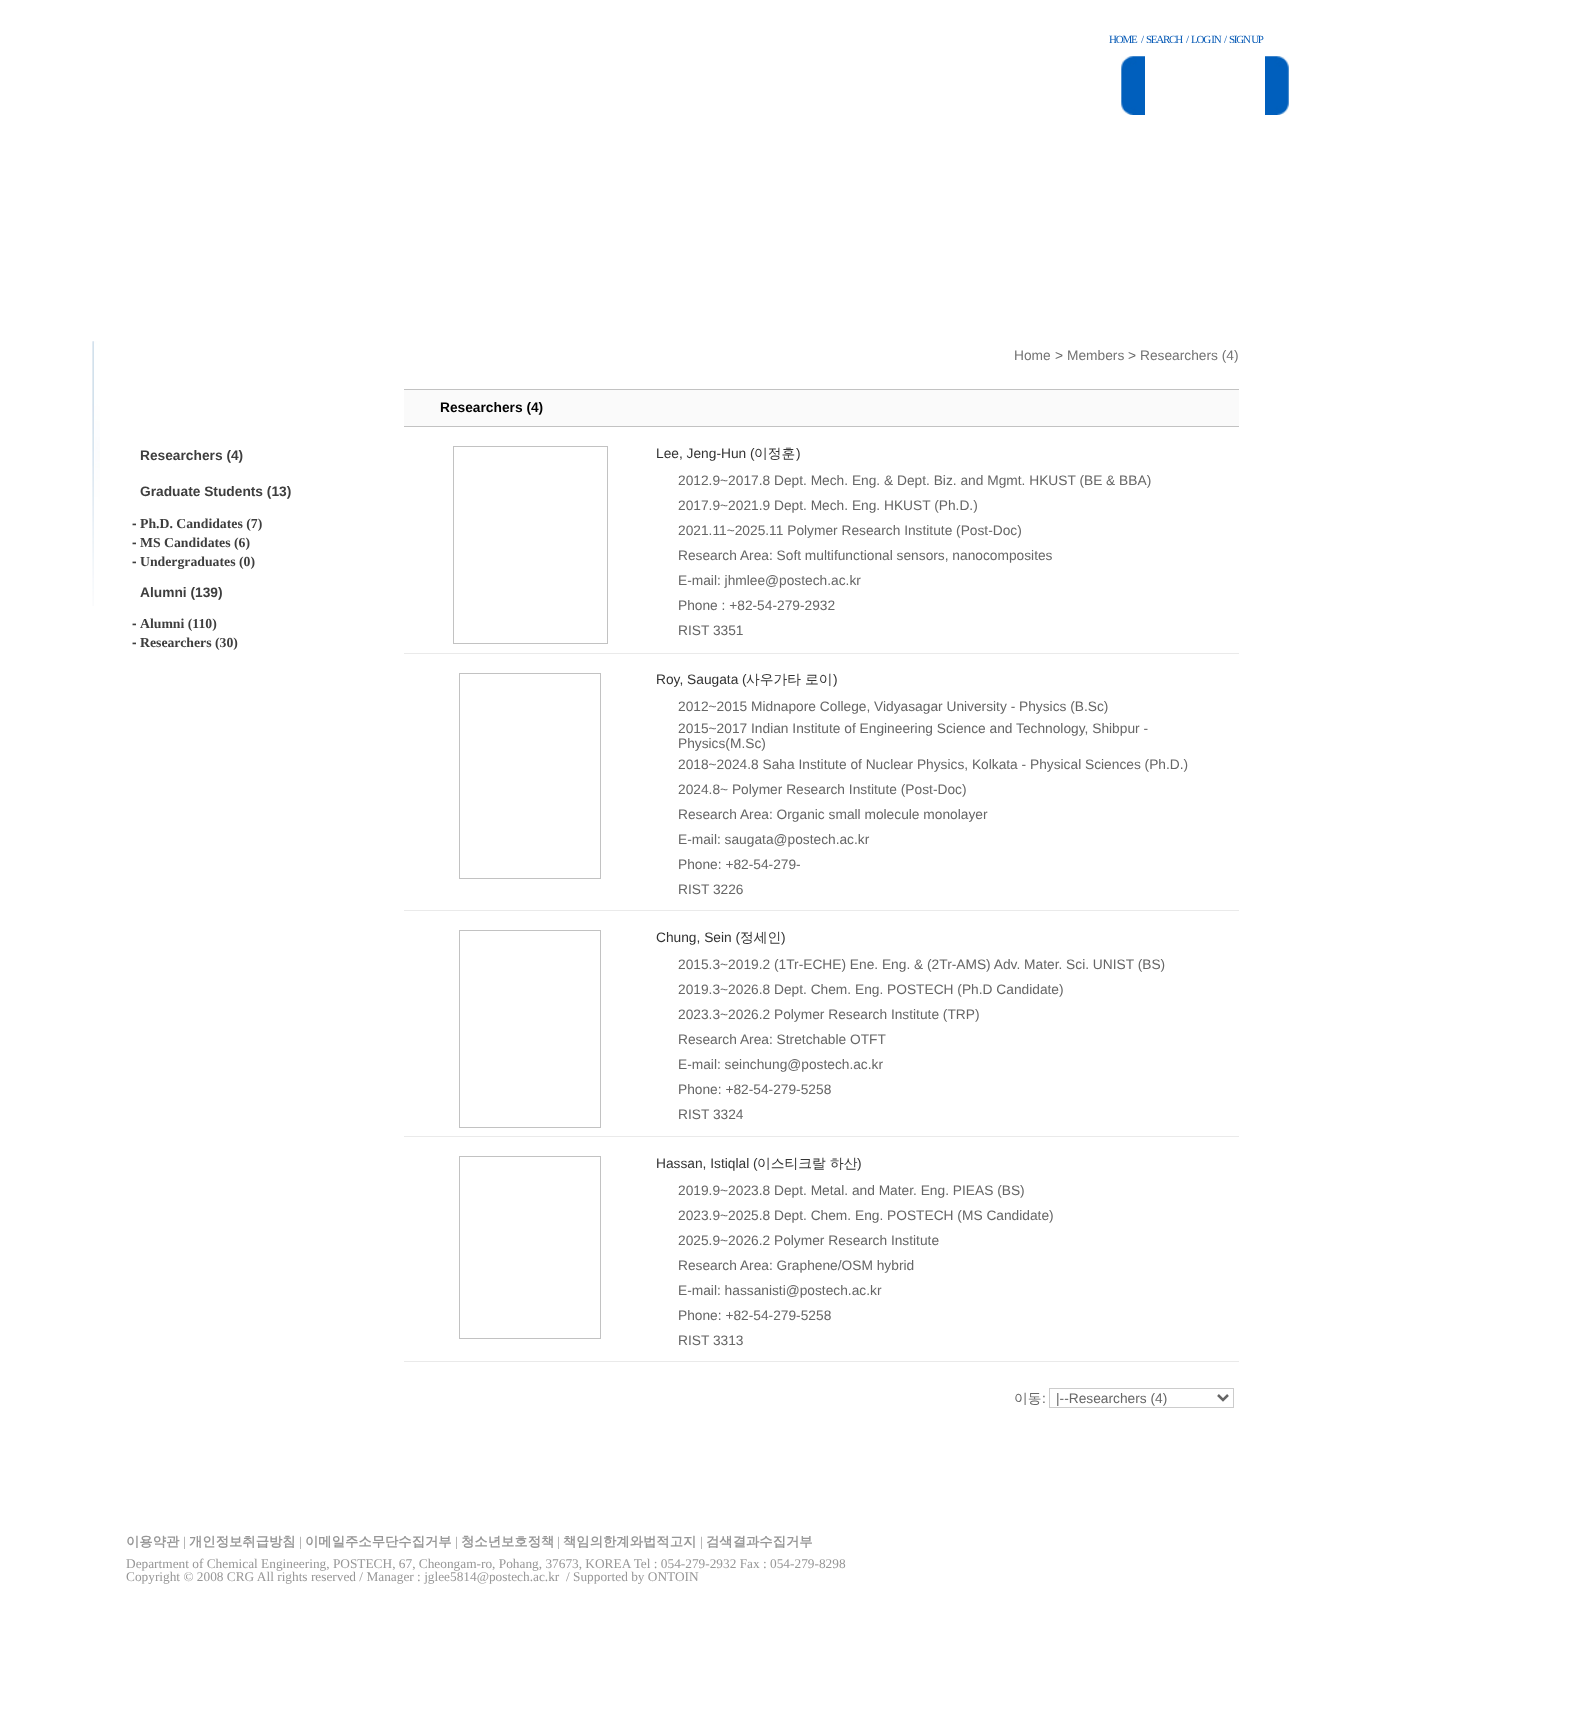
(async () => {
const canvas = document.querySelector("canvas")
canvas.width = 1587
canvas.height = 1735
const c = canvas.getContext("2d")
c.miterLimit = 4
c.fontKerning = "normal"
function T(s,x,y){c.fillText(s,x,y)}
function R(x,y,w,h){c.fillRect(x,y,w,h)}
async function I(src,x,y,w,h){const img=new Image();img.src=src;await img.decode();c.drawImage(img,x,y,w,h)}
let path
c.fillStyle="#fff"
R(0,0,1587,1735)
c.letterSpacing="-1.25px"
c.font="11px Liberation Serif"
c.fillStyle="#085bb6"
T("HOME",1109,43)
T("/",1141,43)
T("SEARCH",1146,43)
T("/",1186,43)
T("LOG IN",1191,43)
T("/",1224,43)
T("SIGN UP",1229,43)
await I("1.png",1121,56,24,59)
await I("2.png",1265,56,24,59)
await I("3.png",92,341,8,265)
c.letterSpacing="0px"
c.font="bold 13.75px Liberation Sans"
c.fillStyle="#3e3e3e"
T("Researchers (4)",140,460)
T("Graduate Students (13)",140,496)
T("-",132,528)
c.font="bold 13.75px Liberation Serif"
T("Ph.D. Candidates (7)",140,528)
c.font="bold 13.75px Liberation Sans"
T("-",132,547)
c.font="bold 13.75px Liberation Serif"
T("MS Candidates (6)",140,547)
c.font="bold 13.75px Liberation Sans"
T("-",132,566)
c.font="bold 13.75px Liberation Serif"
T("Undergraduates (0)",140,566)
c.font="bold 13.75px Liberation Sans"
T("Alumni (139)",140,597)
T("-",132,628)
c.font="bold 13.75px Liberation Serif"
T("Alumni (110)",140,628)
c.font="bold 13.75px Liberation Sans"
T("-",132,647)
c.font="bold 13.75px Liberation Serif"
T("Researchers (30)",140,647)
c.font="13.75px Liberation Sans"
c.fillStyle="#737373"
T("Home",1014,360)
c.fillStyle="#666"
T(">",1055,360)
c.fillStyle="#737373"
T("Members",1067,360)
c.fillStyle="#666"
T(">",1128,360)
c.fillStyle="#737373"
T("Researchers (4)",1140,360)
c.fillStyle="#c2c2c2"
R(404,389,835,1)
c.fillStyle="#fafafa"
R(404,390,835,36)
c.font="bold 13.75px Liberation Sans"
c.fillStyle="#000"
T("Researchers (4)",440,412)
c.fillStyle="#c2c2c2"
R(404,426,835,1)
c.strokeStyle="#c2c2c2"
c.strokeRect(453.5,446.5,154,197)
c.font="13.75px Liberation Sans"
c.fillStyle="#333"
T("Lee, Jeng-Hun (",656,458)
c.font="500 13.75px WenQuanYi Zen Hei"
T("이정훈",754,458)
c.font="13.75px Liberation Sans"
T(")",796,458)
c.fillStyle="#666"
T("2012.9~2017.8 Dept. Mech. Eng. & Dept. Biz. and Mgmt. HKUST (BE & BBA)",678,485)
T("2017.9~2021.9 Dept. Mech. Eng. HKUST (Ph.D.)",678,510)
T("2021.11~2025.11 Polymer Research Institute (Post-Doc)",678,535)
T("Research Area: Soft multifunctional sensors, nanocomposites",678,560)
T("E-mail: jhmlee@postech.ac.kr",678,585)
T("Phone : +82-54-279-2932",678,610)
T("RIST 3351",678,635)
c.fillStyle="#eaeaea"
R(404,653,835,1)
c.strokeRect(459.5,673.5,141,205)
c.fillStyle="#333"
T("Roy, Saugata (",656,684)
c.font="500 13.75px WenQuanYi Zen Hei"
T("사우가타",746,684)
T("로이",805,684)
c.font="13.75px Liberation Sans"
T(")",833,684)
c.fillStyle="#666"
T("2012~2015 Midnapore College, Vidyasagar University - Physics (B.Sc)",678,711)
T("2015~2017 Indian Institute of Engineering Science and Technology, Shibpur -",678,733)
T("Physics(M.Sc)",678,748)
T("2018~2024.8 Saha Institute of Nuclear Physics, Kolkata - Physical Sciences (Ph.D.)",678,769)
T("2024.8~ Polymer Research Institute (Post-Doc)",678,794)
T("Research Area: Organic small molecule monolayer",678,819)
T("E-mail: saugata@postech.ac.kr",678,844)
T("Phone: +82-54-279-",678,869)
T("RIST 3226",678,894)
c.fillStyle="#eaeaea"
R(404,910,835,1)
c.strokeRect(459.5,930.5,141,197)
c.fillStyle="#333"
T("Chung, Sein (",656,942)
c.font="500 13.75px WenQuanYi Zen Hei"
T("정세인",740,942)
c.font="13.75px Liberation Sans"
T(")",781,942)
c.fillStyle="#666"
T("2015.3~2019.2 (1Tr-ECHE) Ene. Eng. & (2Tr-AMS) Adv. Mater. Sci. UNIST (BS)",678,969)
T("2019.3~2026.8 Dept. Chem. Eng. POSTECH (Ph.D Candidate)",678,994)
T("2023.3~2026.2 Polymer Research Institute (TRP)",678,1019)
T("Research Area: Stretchable OTFT",678,1044)
T("E-mail: seinchung@postech.ac.kr",678,1069)
T("Phone: +82-54-279-5258",678,1094)
T("RIST 3324",678,1119)
c.fillStyle="#eaeaea"
R(404,1136,835,1)
c.strokeRect(459.5,1156.5,141,182)
c.fillStyle="#333"
T("Hassan, Istiqlal (",656,1168)
c.font="500 13.75px WenQuanYi Zen Hei"
T("이스티크랄",757,1168)
T("하산",830,1168)
c.font="13.75px Liberation Sans"
T(")",857,1168)
c.fillStyle="#666"
T("2019.9~2023.8 Dept. Metal. and Mater. Eng. PIEAS (BS)",678,1195)
T("2023.9~2025.8 Dept. Chem. Eng. POSTECH (MS Candidate)",678,1220)
T("2025.9~2026.2 Polymer Research Institute",678,1245)
T("Research Area: Graphene/OSM hybrid",678,1270)
T("E-mail: hassanisti@postech.ac.kr",678,1295)
T("Phone: +82-54-279-5258",678,1320)
T("RIST 3313",678,1345)
c.fillStyle="#eaeaea"
R(404,1361,835,1)
c.font="500 13.75px WenQuanYi Zen Hei"
c.fillStyle="#666"
T("이동",1014,1403)
c.font="13.75px Liberation Sans"
T(":",1042,1403)
c.strokeStyle="#ccc"
c.strokeRect(1049.5,1388.5,184,19)
path = new Path2D("M1218 1395l5 5l5-5")
c.strokeStyle="#666"
c.lineWidth=2.5
c.stroke(path)
T("|--Researchers (4)",1056,1403)
c.font="bold 13.33px WenQuanYi Zen Hei"
c.fillStyle="#979797"
T("이용약관",126,1546)
c.font="13.33px Liberation Serif"
T("|",183,1546)
c.font="bold 13.33px WenQuanYi Zen Hei"
T("개인정보취급방침",189,1546)
c.font="13.33px Liberation Serif"
T("|",299,1546)
c.font="bold 13.33px WenQuanYi Zen Hei"
T("이메일주소무단수집거부",305,1546)
c.font="13.33px Liberation Serif"
T("|",455,1546)
c.font="bold 13.33px WenQuanYi Zen Hei"
T("청소년보호정책",461,1546)
c.font="13.33px Liberation Serif"
T("|",557,1546)
c.font="bold 13.33px WenQuanYi Zen Hei"
T("책임의한계와법적고지",563,1546)
c.font="13.33px Liberation Serif"
T("|",700,1546)
c.font="bold 13.33px WenQuanYi Zen Hei"
T("검색결과수집거부",706,1546)
c.font="13.33px Liberation Serif"
T("Department of Chemical Engineering, POSTECH, 67, Cheongam-ro, Pohang, 37673, KOREA Tel : 054-279-2932 Fax : 054-279-8298",126,1568)
T("Copyright © 2008 CRG All rights reserved / Manager : jglee5814@postech.ac.kr",126,1581)
T("/ Supported by ONTOIN",566,1581)
})()
